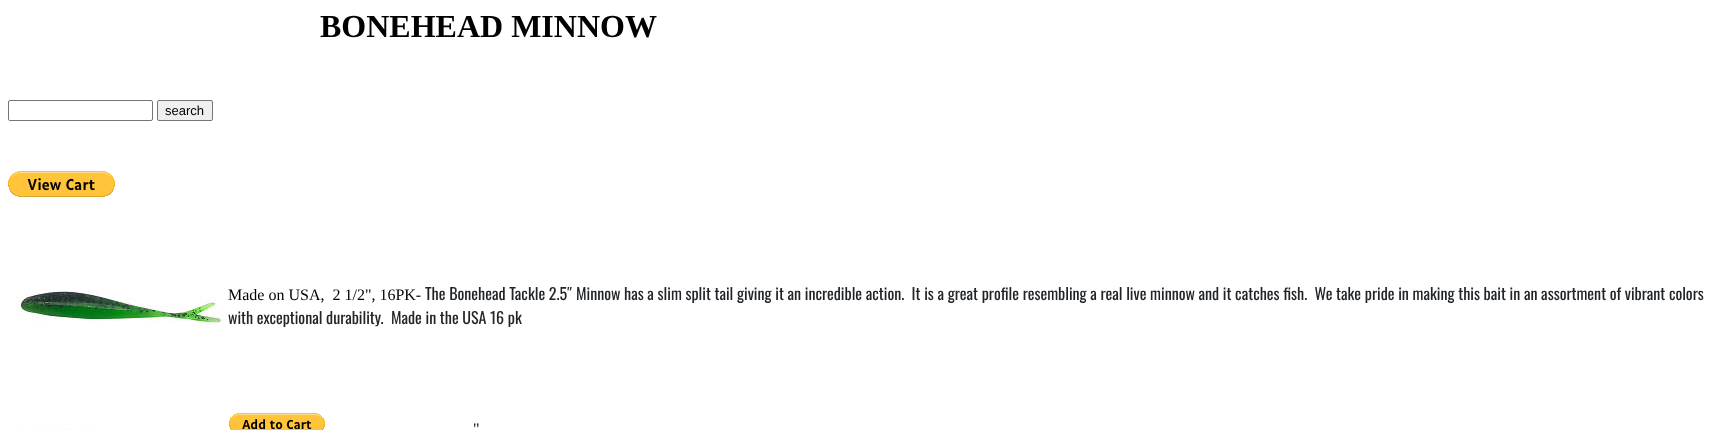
(async () => {
const canvas = document.querySelector("canvas")
canvas.width = 1729
canvas.height = 430
const c = canvas.getContext("2d")
c.miterLimit = 4
c.fontKerning = "normal"
function T(s,x,y){c.fillText(s,x,y)}
function R(x,y,w,h){c.fillRect(x,y,w,h)}
async function I(src,x,y,w,h){const img=new Image();img.src=src;await img.decode();c.drawImage(img,x,y,w,h)}
c.fillStyle="#fff"
R(0,0,1729,430)
c.font="bold 32px Liberation Serif"
c.fillStyle="#000"
T("BONEHEAD MINNOW",320,37)
c.beginPath()
c.roundRect(8.5,100.5,144,20,1.5)
c.strokeStyle="#767676"
c.stroke()
c.fillStyle="#efefef"
c.beginPath()
c.roundRect(157.5,100.5,55,20,1.5)
c.fill()
c.stroke()
c.font="13px Liberation Sans"
c.fillStyle="#000"
T("search",165,115)
await I("1.png",8,171,107,26)
await I("2.png",16,289,208,40)
c.font="16px Liberation Serif"
T("Made on USA,  2 1/2\", 16PK-",228,300)
c.font="16px Oswald"
c.fillStyle="#212529"
T("The Bonehead Tackle 2.5″ Minnow has a slim split tail giving it an incredible action.  It is a great profile resembling a real live minnow and it catches fish.  We take pride in making this bait in an assortment of vibrant colors",425,300)
T("with exceptional durability.  Made in the USA 16 pk",228,324)
await I("3.png",229,413,96,17)
c.font="16px Liberation Serif"
c.fillStyle="#000"
T("\"",473,434)
await I("4.png",16,429,80,1)
})()
